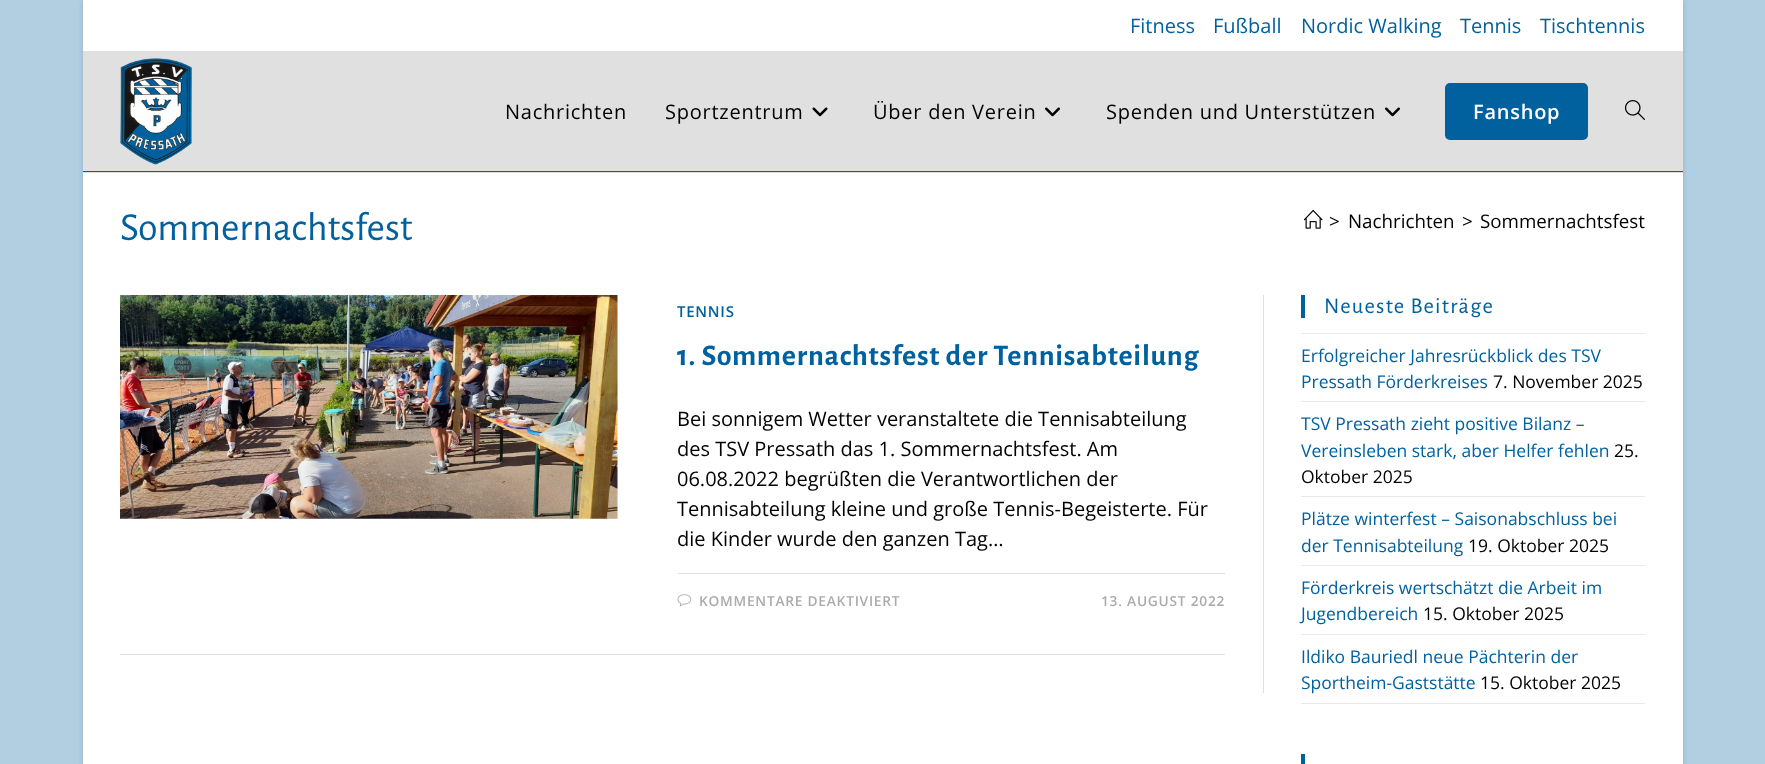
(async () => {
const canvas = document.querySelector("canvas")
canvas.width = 1765
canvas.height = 764
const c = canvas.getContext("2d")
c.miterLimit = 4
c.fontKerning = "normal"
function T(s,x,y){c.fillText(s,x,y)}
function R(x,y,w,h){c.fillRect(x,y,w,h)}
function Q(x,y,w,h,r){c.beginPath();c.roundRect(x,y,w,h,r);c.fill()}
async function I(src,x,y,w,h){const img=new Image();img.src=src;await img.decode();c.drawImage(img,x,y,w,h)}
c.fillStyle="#b2cee1"
R(0,0,1765,764)
c.fillStyle="#00000026"
c.filter="blur(2.5px)"
c.beginPath()
c.rect(83,1,1600,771)
c.fill()
c.filter="none"
c.fillStyle="#fff"
R(83,0,1600,764)
c.font="20px Open Sans"
c.fillStyle="#01619f"
T("Fitness",1130,33)
T("Fußball",1213,33)
T("Nordic Walking",1301,33)
T("Tennis",1460,33)
T("Tischtennis",1540,33)
c.fillStyle="#e0e0e0"
R(83,51,1600,122)
c.fillStyle="#01619f"
R(83,171,1600,1)
await I("1.png",120,58,72,107)
c.letterSpacing="0.75px"
c.fillStyle="#000"
T("Nachrichten",505,119)
T("Sportzentrum",665,119)
await I("2.png",812,107,16,10)
T("Über den Verein",873,119)
await I("3.png",1045,107,15,10)
T("Spenden und Unterstützen",1106,119)
await I("3.png",1385,107,15,10)
c.fillStyle="#01619f"
Q(1445,83,143,57,5)
c.font="600 20px Open Sans"
c.fillStyle="#fff"
T("Fanshop",1473,119)
await I("4.png",1624,100,21,20)
c.letterSpacing="0px"
c.font="40px Alegreya Sans"
c.fillStyle="#01619f"
T("Sommernachtsfest",120,240)
await I("5.png",1304,209,19,20)
c.font="18.75px Open Sans"
c.fillStyle="#000"
T(">",1329,228)
T("Nachrichten",1348,228)
T(">",1462,228)
T("Sommernachtsfest",1480,228)
c.fillStyle="#e0e0e0"
R(1263,295,1,398)
R(120,654,1105,1)
await I("6.png",120,295,498,224)
c.letterSpacing="0.75px"
c.font="600 15px Open Sans"
c.fillStyle="#01619f"
T("TENNIS",677,317)
c.font="bold 30px Alegreya Sans"
T("1. Sommernachtsfest der Tennisabteilung",677,365)
c.letterSpacing="0px"
c.font="20px Open Sans"
c.fillStyle="#000"
T("Bei sonnigem Wetter veranstaltete die Tennisabteilung",677,426)
T("des TSV Pressath das 1. Sommernachtsfest. Am",677,456)
T("06.08.2022 begrüßten die Verantwortlichen der",677,486)
T("Tennisabteilung kleine und große Tennis-Begeisterte. Für",677,516)
T("die Kinder wurde den ganzen Tag…",677,546)
c.fillStyle="#e0e0e0"
R(678,573,547,1)
await I("7.png",677,594,15,13)
c.letterSpacing="0.75px"
c.font="600 13.75px Open Sans"
c.fillStyle="#ababab"
T("KOMMENTARE DEAKTIVIERT",699,606)
T("13. AUGUST 2022",1101,606)
c.fillStyle="#01619f"
R(1301,295,4,23)
c.letterSpacing="1.25px"
c.font="22.5px Alegreya Sans"
T("Neueste Beiträge",1324,313)
c.fillStyle="#e9e9e9"
R(1301,333,344,1)
R(1301,401,344,1)
c.letterSpacing="0px"
c.font="17.5px Open Sans"
c.fillStyle="#01619f"
T("Erfolgreicher Jahresrückblick des TSV",1301,362)
T("Pressath Förderkreises",1301,388)
c.fillStyle="#000"
T("7. November 2025",1493,388)
c.fillStyle="#e9e9e9"
R(1301,496,344,1)
c.fillStyle="#01619f"
T("TSV Pressath zieht positive Bilanz –",1301,430)
T("Vereinsleben stark, aber Helfer fehlen",1301,457)
c.fillStyle="#000"
T("25.",1614,457)
T("Oktober 2025",1301,483)
c.fillStyle="#e9e9e9"
R(1301,565,344,1)
c.fillStyle="#01619f"
T("Plätze winterfest – Saisonabschluss bei",1301,525)
T("der Tennisabteilung",1301,552)
c.fillStyle="#000"
T("19. Oktober 2025",1468,552)
c.fillStyle="#e9e9e9"
R(1301,634,344,1)
c.fillStyle="#01619f"
T("Förderkreis wertschätzt die Arbeit im",1301,594)
T("Jugendbereich",1301,620)
c.fillStyle="#000"
T("15. Oktober 2025",1423,620)
c.fillStyle="#e9e9e9"
R(1301,703,344,1)
c.fillStyle="#01619f"
T("Ildiko Bauriedl neue Pächterin der",1301,663)
T("Sportheim-Gaststätte",1301,689)
c.fillStyle="#000"
T("15. Oktober 2025",1480,689)
c.fillStyle="#01619f"
R(1301,754,4,10)
})()
